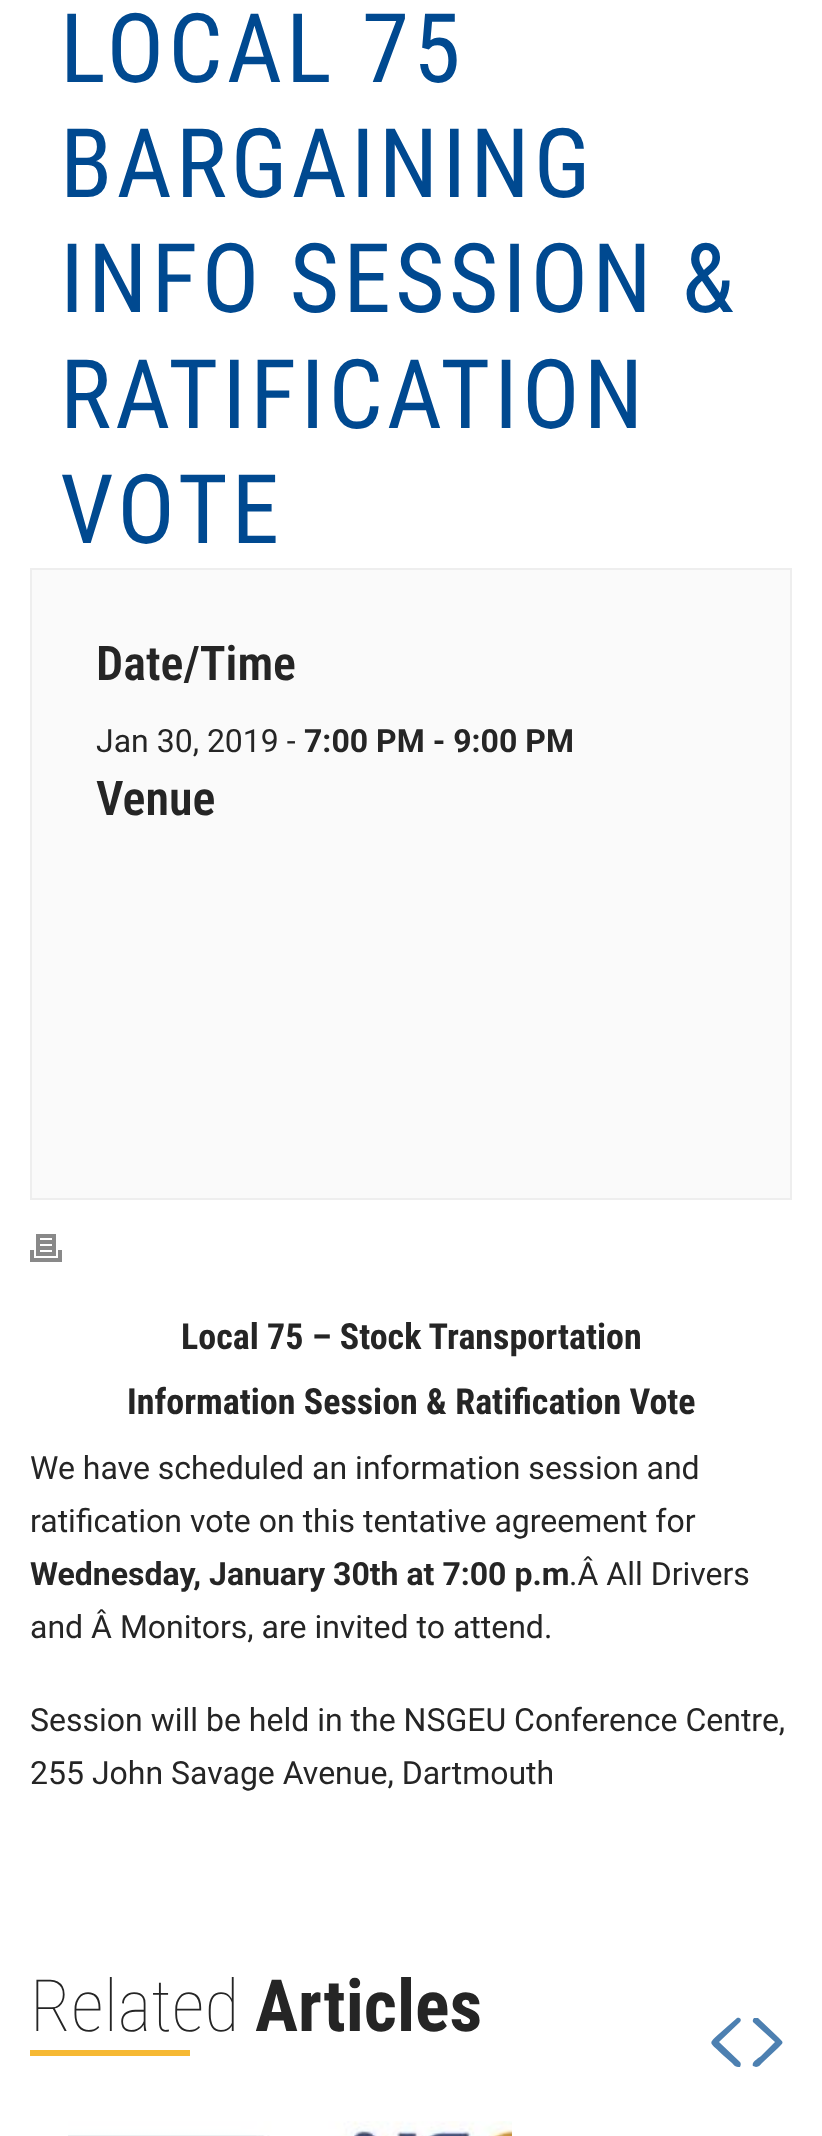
(async () => {
const canvas = document.querySelector("canvas")
canvas.width = 822
canvas.height = 2136
const c = canvas.getContext("2d")
c.miterLimit = 4
c.fontKerning = "normal"
function T(s,x,y){c.fillText(s,x,y)}
function R(x,y,w,h){c.fillRect(x,y,w,h)}
async function I(src,x,y,w,h){const img=new Image();img.src=src;await img.decode();c.drawImage(img,x,y,w,h)}
let path
c.fillStyle="#fff"
R(0,0,822,2136)
c.letterSpacing="4px"
c.font="96px Roboto Condensed"
c.fillStyle="#004990"
T("LOCAL 75",60,82)
T("BARGAINING",60,197)
T("INFO SESSION &",60,312)
T("RATIFICATION",60,428)
T("VOTE",60,543)
c.fillStyle="#fafafa"
c.beginPath()
c.rect(31,569,760,630)
c.fill()
c.strokeStyle="#eee"
c.lineWidth=2
c.stroke()
c.letterSpacing="0px"
c.font="600 48px Roboto Condensed"
c.fillStyle="#252525"
T("Date/Time",96,680)
c.font="32px Roboto"
T("Jan 30, 2019 -",96,752)
c.font="bold 32px Roboto"
T("7:00 PM - 9:00 PM",304,752)
c.font="600 48px Roboto Condensed"
T("Venue",96,815)
await I("1.png",30,1234,32,28)
c.font="bold 36px Roboto Condensed"
T("Local 75 – Stock Transportation",181,1349)
T("Information Session & Ratification Vote",127,1414)
c.font="32px Roboto"
T("We have scheduled an information session and",30,1479)
T("ratification vote on this tentative agreement for",30,1532)
c.font="bold 32px Roboto"
T("Wednesday, January 30th at 7:00 p.m",30,1585)
c.font="32px Roboto"
T(".Â All Drivers",569,1585)
T("and Â Monitors, are invited to attend.",30,1638)
T("Session will be held in the NSGEU Conference Centre,",30,1731)
T("255 John Savage Avenue, Dartmouth",30,1784)
c.font="100 72px Roboto Condensed"
T("Related",30,2031)
c.font="bold 72px Roboto Condensed"
T("Articles",255,2031)
c.fillStyle="#f6b934"
R(30,2050,160,6)
c.fillStyle="#4d80b1"
path = new Path2D("M738 2067c-3 0-5-3-6-4l-8-7c-15-15-17-11-4-23l17-15c3-1 5 2 3 4l-21 20l21 20c1 1 1 3 0 5z")
c.fill(path)
c.save()
c.beginPath()
c.rect(742,2018,50,50)
c.clip()
path = new Path2D("M756 2067c3 0 5-3 6-4l16-15c6-6 6-5 0-11l-20-19c-3-2-6 1-5 4l22 20l-14 14c-2 2-10 6-8 10z")
c.fill(path)
c.restore()
await I("2.png",68,2121,444,15)
})()
